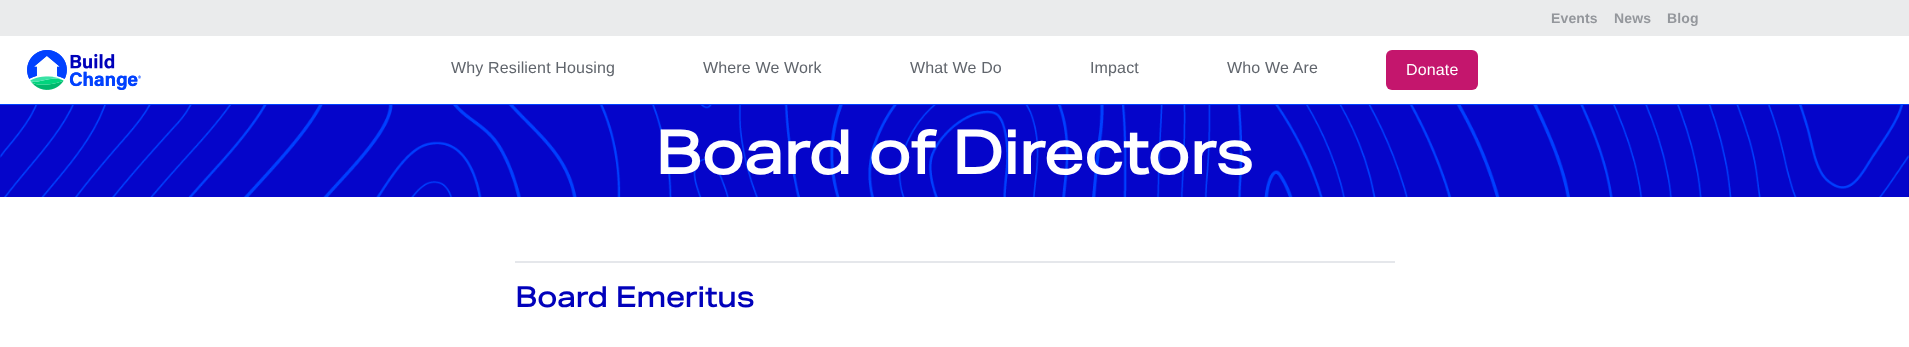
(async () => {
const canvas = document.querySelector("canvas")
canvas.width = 1909
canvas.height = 347
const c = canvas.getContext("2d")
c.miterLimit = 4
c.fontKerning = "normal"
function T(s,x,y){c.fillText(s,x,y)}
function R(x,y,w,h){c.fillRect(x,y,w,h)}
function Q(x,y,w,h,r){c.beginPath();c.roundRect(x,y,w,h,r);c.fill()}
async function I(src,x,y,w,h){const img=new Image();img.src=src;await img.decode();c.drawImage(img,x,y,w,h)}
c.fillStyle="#fff"
R(0,0,1909,347)
c.fillStyle="#eaebec"
R(0,0,1909,36)
c.letterSpacing="0.15px"
c.font="bold 14px Liberation Sans"
c.fillStyle="#94979c"
T("Events",1551,23)
T("News",1614,23)
T("Blog",1667,23)
c.fillStyle="#0041ff"
R(0,104,1909,1)
await I("1.png",27,50,114,40)
c.font="16px Liberation Sans"
c.fillStyle="#60656c"
T("Why Resilient Housing",451,73)
T("Where We Work",703,73)
T("What We Do",910,73)
T("Impact",1090,73)
T("Who We Are",1227,73)
c.fillStyle="#c4166d"
Q(1386,50,92,40,6)
c.fillStyle="#fff"
T("Donate",1406,75)
c.fillStyle="#0101bb"
R(1908,105,1,92)
await I("2.png",0,105,1909,92)
c.letterSpacing="0px"
c.font="bold 60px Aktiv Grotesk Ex"
c.fillStyle="#fff"
T("Board of Directors",655,174)
c.fillStyle="#e5e7eb"
R(515,261,880,2)
c.letterSpacing="0.15px"
c.font="bold 28px Aktiv Grotesk Ex"
c.fillStyle="#0101bb"
T("Board Emeritus",515,307)
})()
